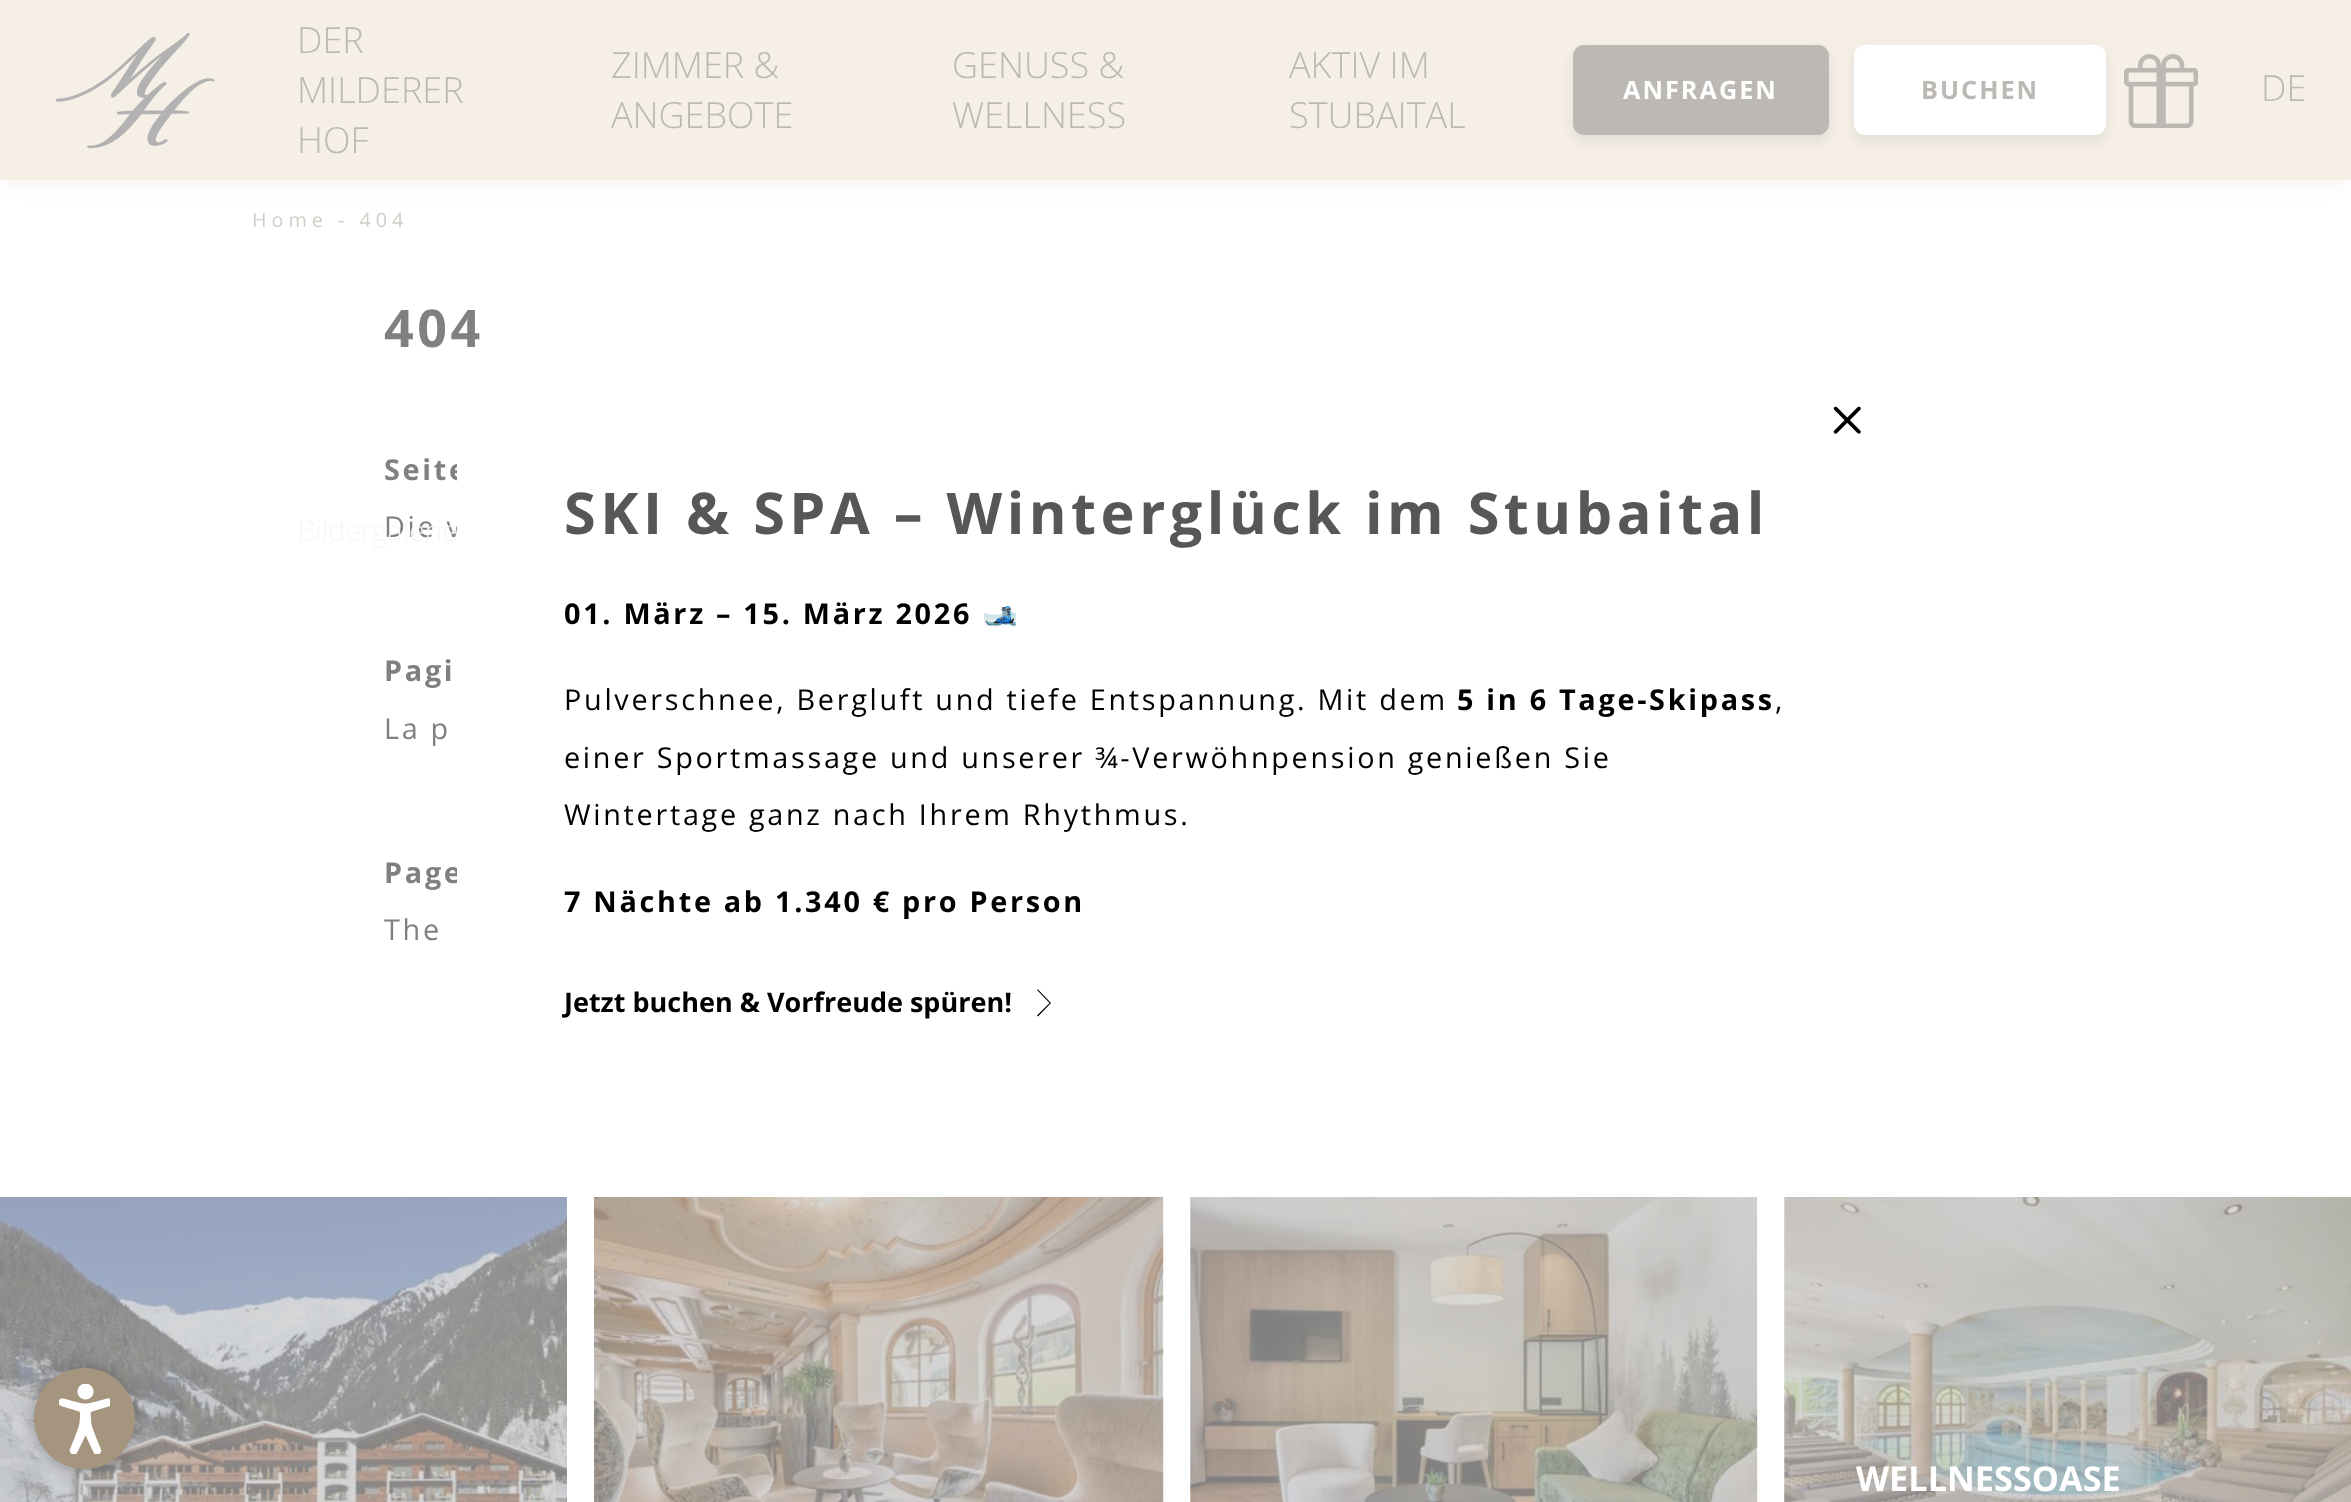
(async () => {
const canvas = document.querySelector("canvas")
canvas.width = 2351
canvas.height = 1502
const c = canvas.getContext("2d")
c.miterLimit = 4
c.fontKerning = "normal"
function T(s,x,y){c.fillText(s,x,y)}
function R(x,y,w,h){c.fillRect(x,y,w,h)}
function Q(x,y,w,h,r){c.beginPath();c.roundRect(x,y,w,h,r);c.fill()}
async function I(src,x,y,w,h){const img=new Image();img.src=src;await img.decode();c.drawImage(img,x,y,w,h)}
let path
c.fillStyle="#fff"
R(0,0,2351,1502)
await I("5.png",0,1197,567,305)
c.fillStyle="#00000038"
c.filter="blur(7px)"
c.beginPath()
c.roundRect(32,1366,105,106,52.5)
c.fill()
c.filter="none"
c.fillStyle="#a5957e"
c.beginPath()
c.arc(84.5,1418.5,50.5,0,7)
c.fill()
await I("1.png",59,1384,51,70)
c.fillStyle="#f5efe6"
c.filter="blur(11px)"
c.beginPath()
c.rect(0,0,2351,180)
c.fill()
c.filter="none"
R(0,0,2351,180)
await I("2.png",55,32,160,117)
c.font="300 36px Open Sans"
c.fillStyle="#bcb8b3"
T("DER",297,53)
T("MILDERER",297,103)
T("HOF",297,153)
c.letterSpacing="2.7px"
c.font="28.8px Open Sans"
c.fillStyle="#808080"
T("Die v",384,537)
c.letterSpacing="0px"
c.font="300 28.8px Open Sans"
c.fillStyle="#f6f6f6"
T("Bildergalerie",297,541)
c.font="300 36px Open Sans"
c.fillStyle="#bcb8b3"
T("ZIMMER &",611,78)
T("ANGEBOTE",611,128)
T("GENUSS &",952,78)
T("WELLNESS",952,128)
T("AKTIV IM",1289,78)
T("STUBAITAL",1289,128)
c.fillStyle="#80808029"
c.filter="blur(7px)"
c.beginPath()
c.roundRect(1573,52,256,90,11)
c.fill()
c.filter="none"
c.fillStyle="#bcb8b3"
Q(1573,45,256,90,11)
c.letterSpacing="2px"
c.font="bold 25.25px Open Sans"
c.fillStyle="#fff"
T("ANFRAGEN",1623,99)
c.fillStyle="#80808029"
c.filter="blur(7px)"
c.beginPath()
c.roundRect(1854,52,252,90,11)
c.fill()
c.filter="none"
c.fillStyle="#fff"
Q(1854,45,252,90,11)
c.fillStyle="#bcb8b3"
T("BUCHEN",1921,99)
await I("3.png",2124,54,74,74)
c.letterSpacing="0px"
c.font="300 36px Open Sans"
T("DE",2261,101)
c.letterSpacing="5px"
c.font="19.75px Open Sans"
c.fillStyle="#d1cec8"
T("Home - 404",252,227)
c.letterSpacing="3.5px"
c.font="bold 52px Open Sans"
c.fillStyle="#808080"
T("404",384,347)
c.letterSpacing="2.7px"
c.font="bold 28.8px Open Sans"
T("Seite",384,480)
T("Pagi",384,681)
c.font="28.8px Open Sans"
T("La p",384,739)
c.font="bold 28.8px Open Sans"
T("Page",384,883)
c.font="28.8px Open Sans"
T("The",384,940)
c.fillStyle="#fff"
Q(457,371,1440,761,45)
await I("4.png",1833,406,28,28)
c.letterSpacing="4.5px"
c.font="bold 57.6px Open Sans"
c.fillStyle="#575756"
T("SKI & SPA – Winterglück im Stubaital",564,534)
c.letterSpacing="2.7px"
c.font="bold 28.8px Open Sans"
c.fillStyle="#000"
T("01. März – 15. März 2026",564,624)
c.font="bold 28.8px Noto Color Emoji"
T("🎿",982,624)
c.font="28.8px Open Sans"
T("Pulverschnee, Bergluft und tiefe Entspannung. Mit dem",564,710)
c.font="bold 28.8px Open Sans"
T("5 in 6 Tage-Skipass",1457,710)
c.font="28.8px Open Sans"
T(",",1775,710)
T("einer Sportmassage und unserer ¾-Verwöhnpension genießen Sie",564,768)
T("Wintertage ganz nach Ihrem Rhythmus.",564,825)
c.font="bold 28.8px Open Sans"
T("7 Nächte ab 1.340 € pro Person",564,912)
c.letterSpacing="0px"
c.font="bold 27px Open Sans"
T("Jetzt buchen & Vorfreude spüren!",564,1012)
path = new Path2D("M1038 1016.5l13-13.5l-13-13.5l-1 .5l12.5 13l-12.5 12.5z")
c.fill(path)
await I("6.png",594,1197,570,305)
await I("7.png",1190,1197,568,305)
await I("8.png",1784,1197,567,305)
c.font="bold 34.25px Open Sans"
c.fillStyle="#fff"
T("WELLNESSOASE",1856,1491)
})()
